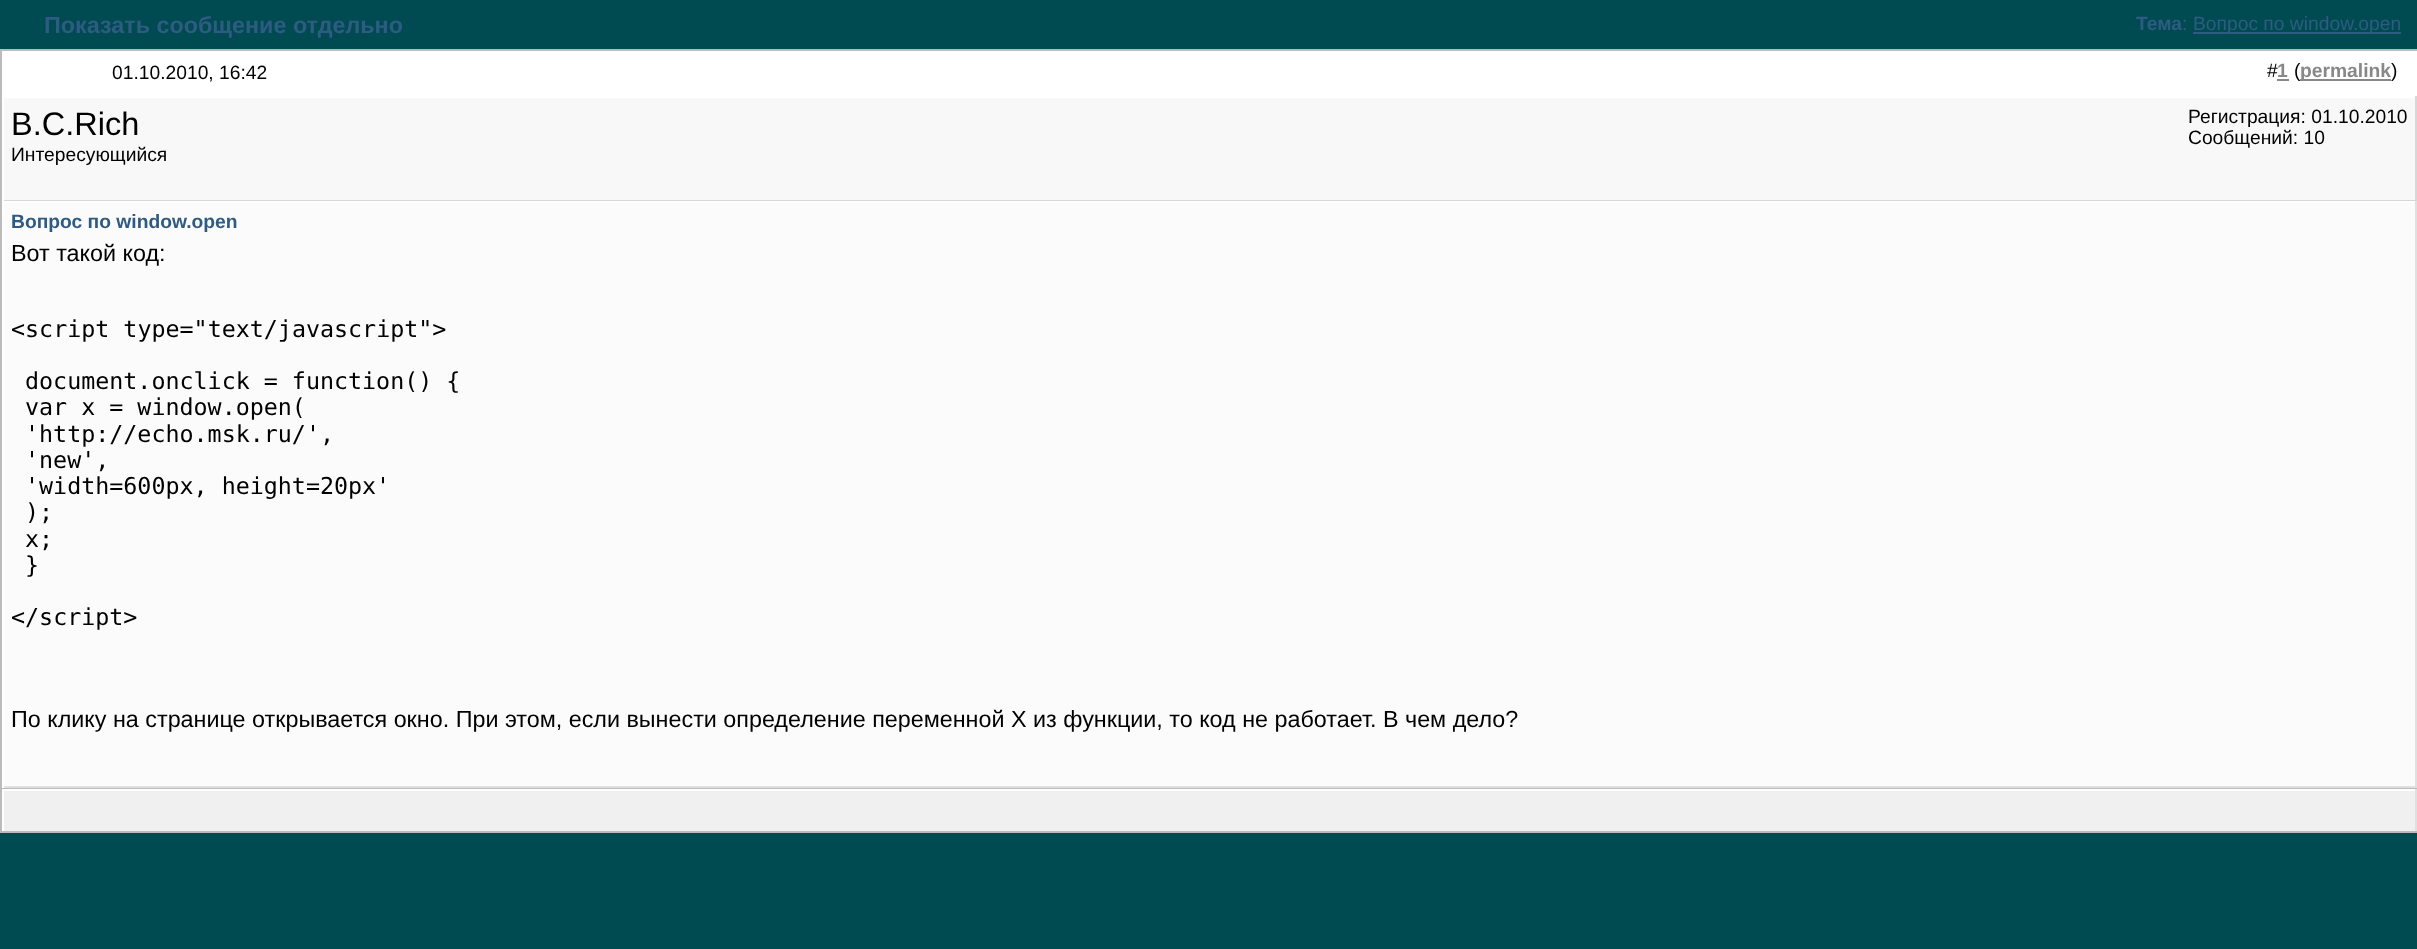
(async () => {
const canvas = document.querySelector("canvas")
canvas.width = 2417
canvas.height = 949
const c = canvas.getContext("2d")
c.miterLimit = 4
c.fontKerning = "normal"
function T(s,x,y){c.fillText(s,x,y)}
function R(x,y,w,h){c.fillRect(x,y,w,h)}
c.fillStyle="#004b52"
R(0,0,2417,949)
c.font="bold 23.33px Liberation Sans"
c.fillStyle="#2e5b82"
T("Показать сообщение отдельно",44,33)
c.font="bold 19.25px Liberation Sans"
T("Тема",2136,30)
c.font="19.25px Liberation Sans"
T(":",2182,30)
R(2193,32,208,2)
T("Вопрос по window.open",2193,30)
c.strokeStyle="#bbb"
c.lineWidth=2
c.strokeRect(1,50,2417,738)
c.fillStyle="#fff"
R(2,51,2415,47)
c.fillStyle="#000"
T("01.10.2010, 16:42",112,79)
T("#",2267,77)
c.font="bold 19.25px Liberation Sans"
c.fillStyle="#888"
T("1",2277,77)
R(2277,79,12,2)
c.font="19.25px Liberation Sans"
c.fillStyle="#000"
T("(",2294,77)
c.fillStyle="#888"
R(2300,79,91,2)
c.font="bold 19.25px Liberation Sans"
T("permalink",2300,77)
c.font="19.25px Liberation Sans"
c.fillStyle="#000"
T(")",2391,77)
c.fillStyle="#f8f8f8"
R(4,98,2411,102)
c.fillStyle="#d7d7d7"
R(2415,96,2,105)
R(2,200,2415,1)
c.fillStyle="#fff"
R(2,96,2,105)
c.font="32.5px Liberation Sans"
c.fillStyle="#000"
T("B.C.Rich",11,135)
c.font="19.25px Liberation Sans"
T("Интересующийся",11,161)
T("Регистрация: 01.10.2010",2188,123)
T("Сообщений: 10",2188,144)
c.fillStyle="#fbfbfb"
R(4,203,2411,583)
c.fillStyle="#fff"
R(2,201,2415,2)
c.fillStyle="#e0e0e0"
R(2415,201,2,587)
R(2,786,2415,2)
c.fillStyle="#fff"
R(2,201,2,587)
c.font="bold 19.25px Liberation Sans"
c.fillStyle="#2e5b82"
T("Вопрос по window.open",11,228)
c.font="23.33px Liberation Sans"
c.fillStyle="#000"
T("Вот такой код:",11,261)
c.font="23.33px DejaVu Sans Mono"
T("<script type=\"text/javascript\">",11,337)
T("document.onclick = function() {",25,389)
T("var x = window.open(",25,415)
T("'http://echo.msk.ru/',",25,442)
T("'new',",25,468)
T("'width=600px, height=20px'",25,494)
T(");",25,520)
T("x;",25,547)
T("}",25,573)
T("<\/script>",11,625)
c.font="23.33px Liberation Sans"
T("По клику на странице открывается окно. При этом, если вынести определение переменной X из функции, то код не работает. В чем дело?",11,727)
c.fillStyle="#bbb"
R(0,831,2417,2)
R(0,789,2,44)
c.fillStyle="#f0f0f0"
R(4,791,2411,40)
c.fillStyle="#fff"
R(2,789,2415,2)
c.fillStyle="#e0e0e0"
R(2415,789,2,42)
c.fillStyle="#fff"
R(2,789,2,42)
})()
